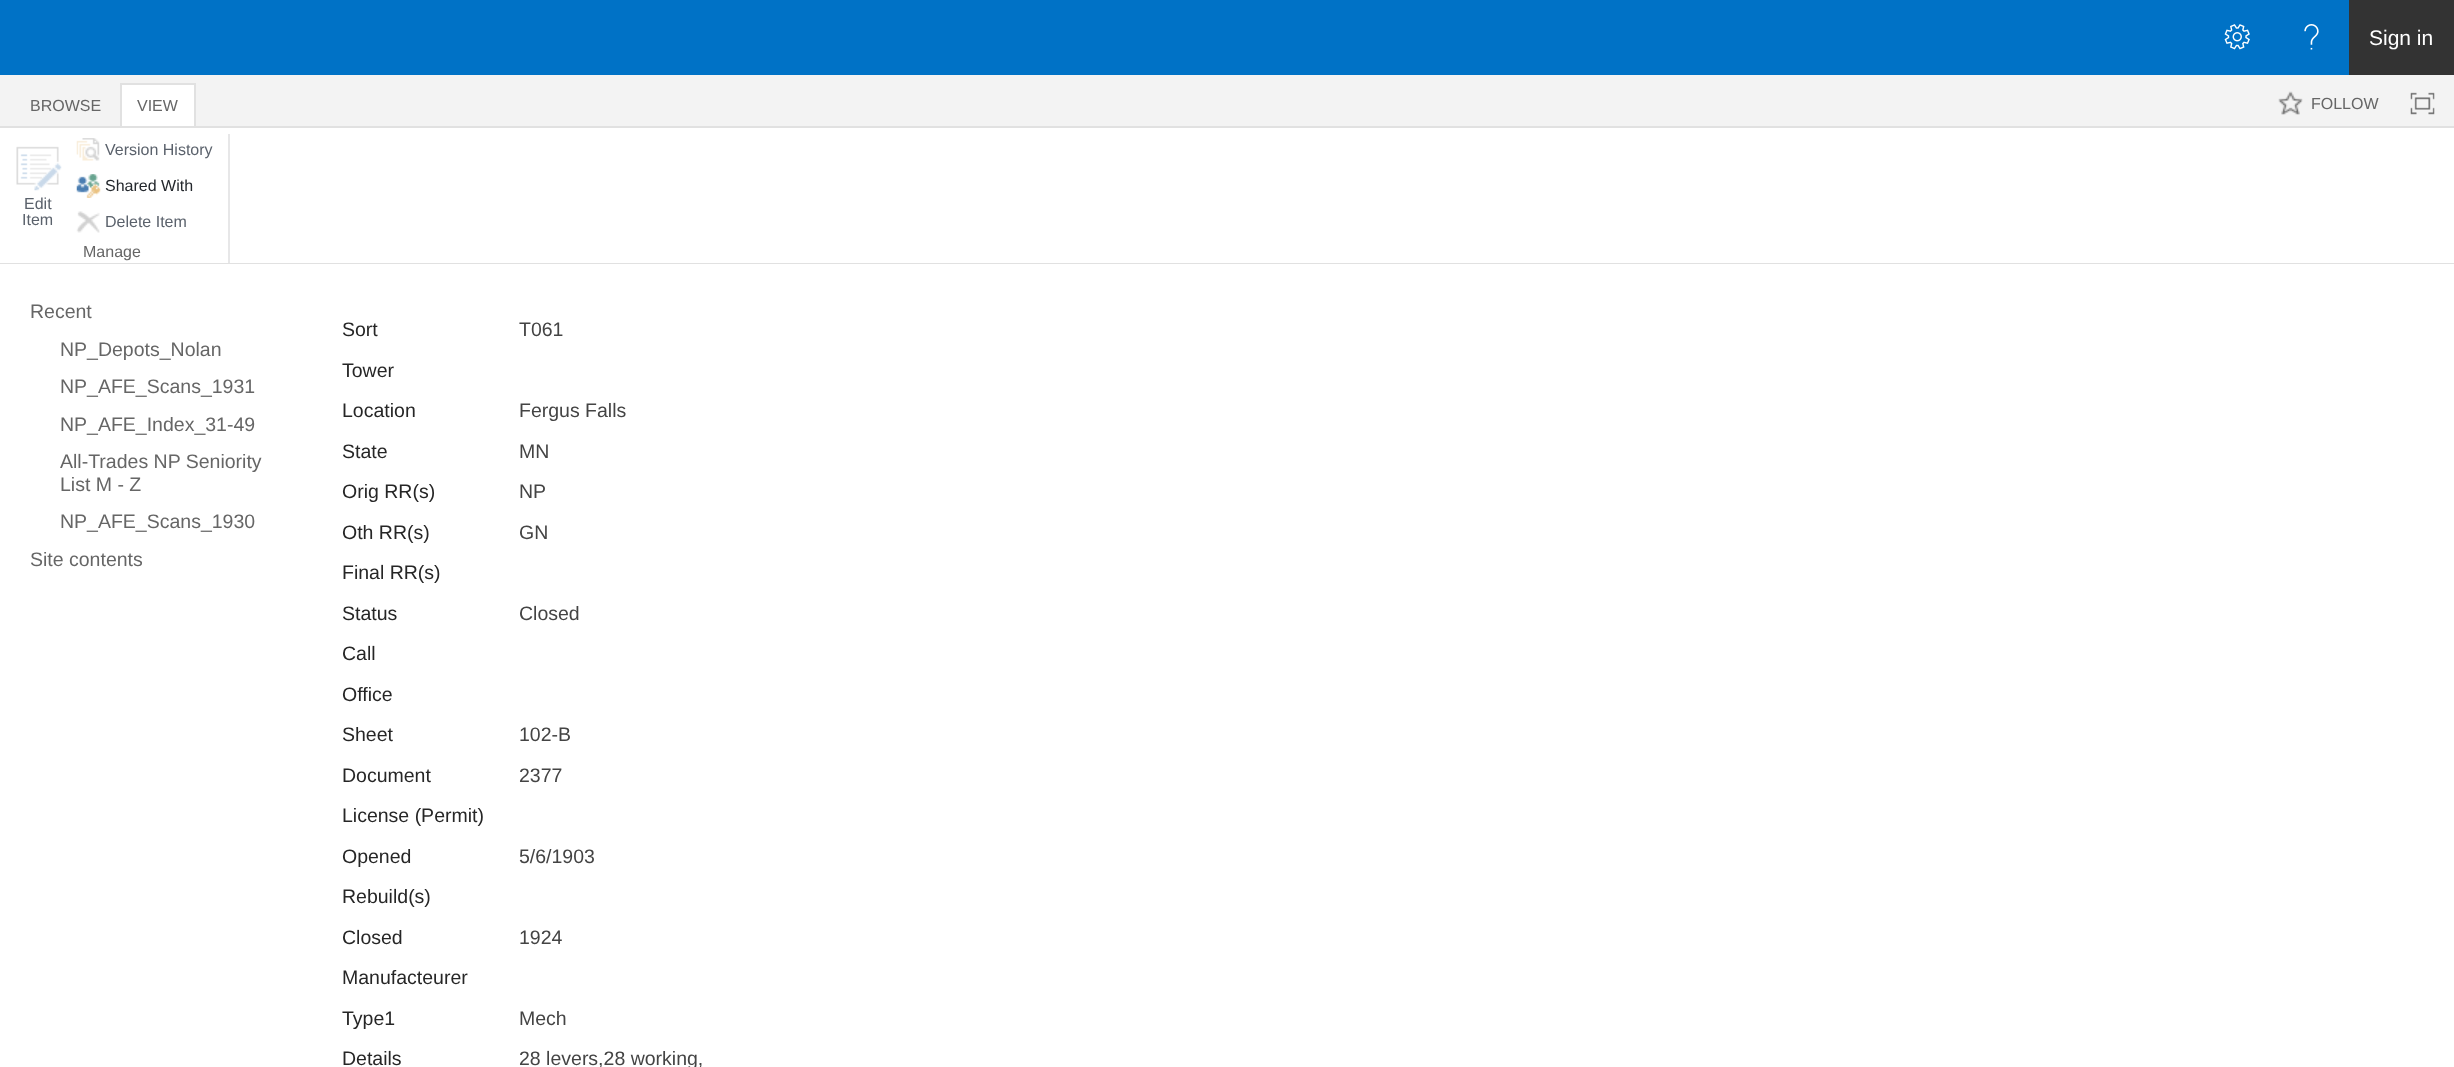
(async () => {
const canvas = document.querySelector("canvas")
canvas.width = 2454
canvas.height = 1067
const c = canvas.getContext("2d")
c.miterLimit = 4
c.fontKerning = "normal"
function T(s,x,y){c.fillText(s,x,y)}
function R(x,y,w,h){c.fillRect(x,y,w,h)}
async function I(src,x,y,w,h){const img=new Image();img.src=src;await img.decode();c.drawImage(img,x,y,w,h)}
c.fillStyle="#fff"
R(0,0,2454,1067)
c.fillStyle="#0072c6"
R(0,0,2349,75)
await I("1.png",2224,24,26,26)
await I("2.png",2304,24,15,26)
c.fillStyle="#333"
R(2349,0,105,75)
c.font="21px Liberation Sans"
c.fillStyle="#fff"
T("Sign in",2369,45)
c.fillStyle="#f3f3f3"
R(0,75,2454,51)
c.fillStyle="#e1e1e1"
R(0,126,2454,2)
c.font="16px Liberation Sans"
c.fillStyle="#666"
T("BROWSE",30,111)
c.fillStyle="#fff"
R(122,85,72,41)
c.fillStyle="#e1e1e1"
R(120,83,75,2)
R(194,83,2,43)
R(120,83,2,43)
c.fillStyle="#666"
T("VIEW",137,111)
await I("3.png",2278,91,25,24)
T("FOLLOW",2311,109)
await I("4.png",2410,92,25,23)
c.fillStyle="#e1e1e1"
R(0,263,2454,1)
await I("5.png",16,146,46,45)
c.fillStyle="#5b626c"
T("Edit",24,209)
T("Item",22,225)
await I("6.png",76,138,24,23)
T("Version History",105,155)
await I("7.png",76,174,25,24)
c.fillStyle="#23272c"
T("Shared With",105,191)
await I("8.png",76,211,24,22)
c.fillStyle="#5b626c"
T("Delete Item",105,227)
c.fillStyle="#666"
T("Manage",83,257)
c.fillStyle="#e7e7e8"
R(228,134,2,129)
c.font="19.5px Liberation Sans"
c.fillStyle="#666"
T("Recent",30,318)
T("NP_Depots_Nolan",60,356)
T("NP_AFE_Scans_1931",60,393)
T("NP_AFE_Index_31-49",60,431)
T("All-Trades NP Seniority",60,468)
T("List M - Z",60,491)
T("NP_AFE_Scans_1930",60,528)
T("Site contents",30,566)
c.fillStyle="#262626"
T("Sort",342,336)
c.fillStyle="#444"
T("T061",519,336)
c.fillStyle="#262626"
T("Tower",342,377)
T("Location",342,417)
c.fillStyle="#444"
T("Fergus Falls",519,417)
c.fillStyle="#262626"
T("State",342,458)
c.fillStyle="#444"
T("MN",519,458)
c.fillStyle="#262626"
T("Orig RR(s)",342,498)
c.fillStyle="#444"
T("NP",519,498)
c.fillStyle="#262626"
T("Oth RR(s)",342,539)
c.fillStyle="#444"
T("GN",519,539)
c.fillStyle="#262626"
T("Final RR(s)",342,579)
T("Status",342,620)
c.fillStyle="#444"
T("Closed",519,620)
c.fillStyle="#262626"
T("Call",342,660)
T("Office",342,701)
T("Sheet",342,741)
c.fillStyle="#444"
T("102-B",519,741)
c.fillStyle="#262626"
T("Document",342,782)
c.fillStyle="#444"
T("2377",519,782)
c.fillStyle="#262626"
T("License (Permit)",342,822)
T("Opened",342,863)
c.fillStyle="#444"
T("5/6/1903",519,863)
c.fillStyle="#262626"
T("Rebuild(s)",342,903)
T("Closed",342,944)
c.fillStyle="#444"
T("1924",519,944)
c.fillStyle="#262626"
T("Manufacteurer",342,984)
T("Type1",342,1025)
c.fillStyle="#444"
T("Mech",519,1025)
c.fillStyle="#262626"
T("Details",342,1065)
c.fillStyle="#444"
T("28 levers,28 working,",519,1065)
})()
